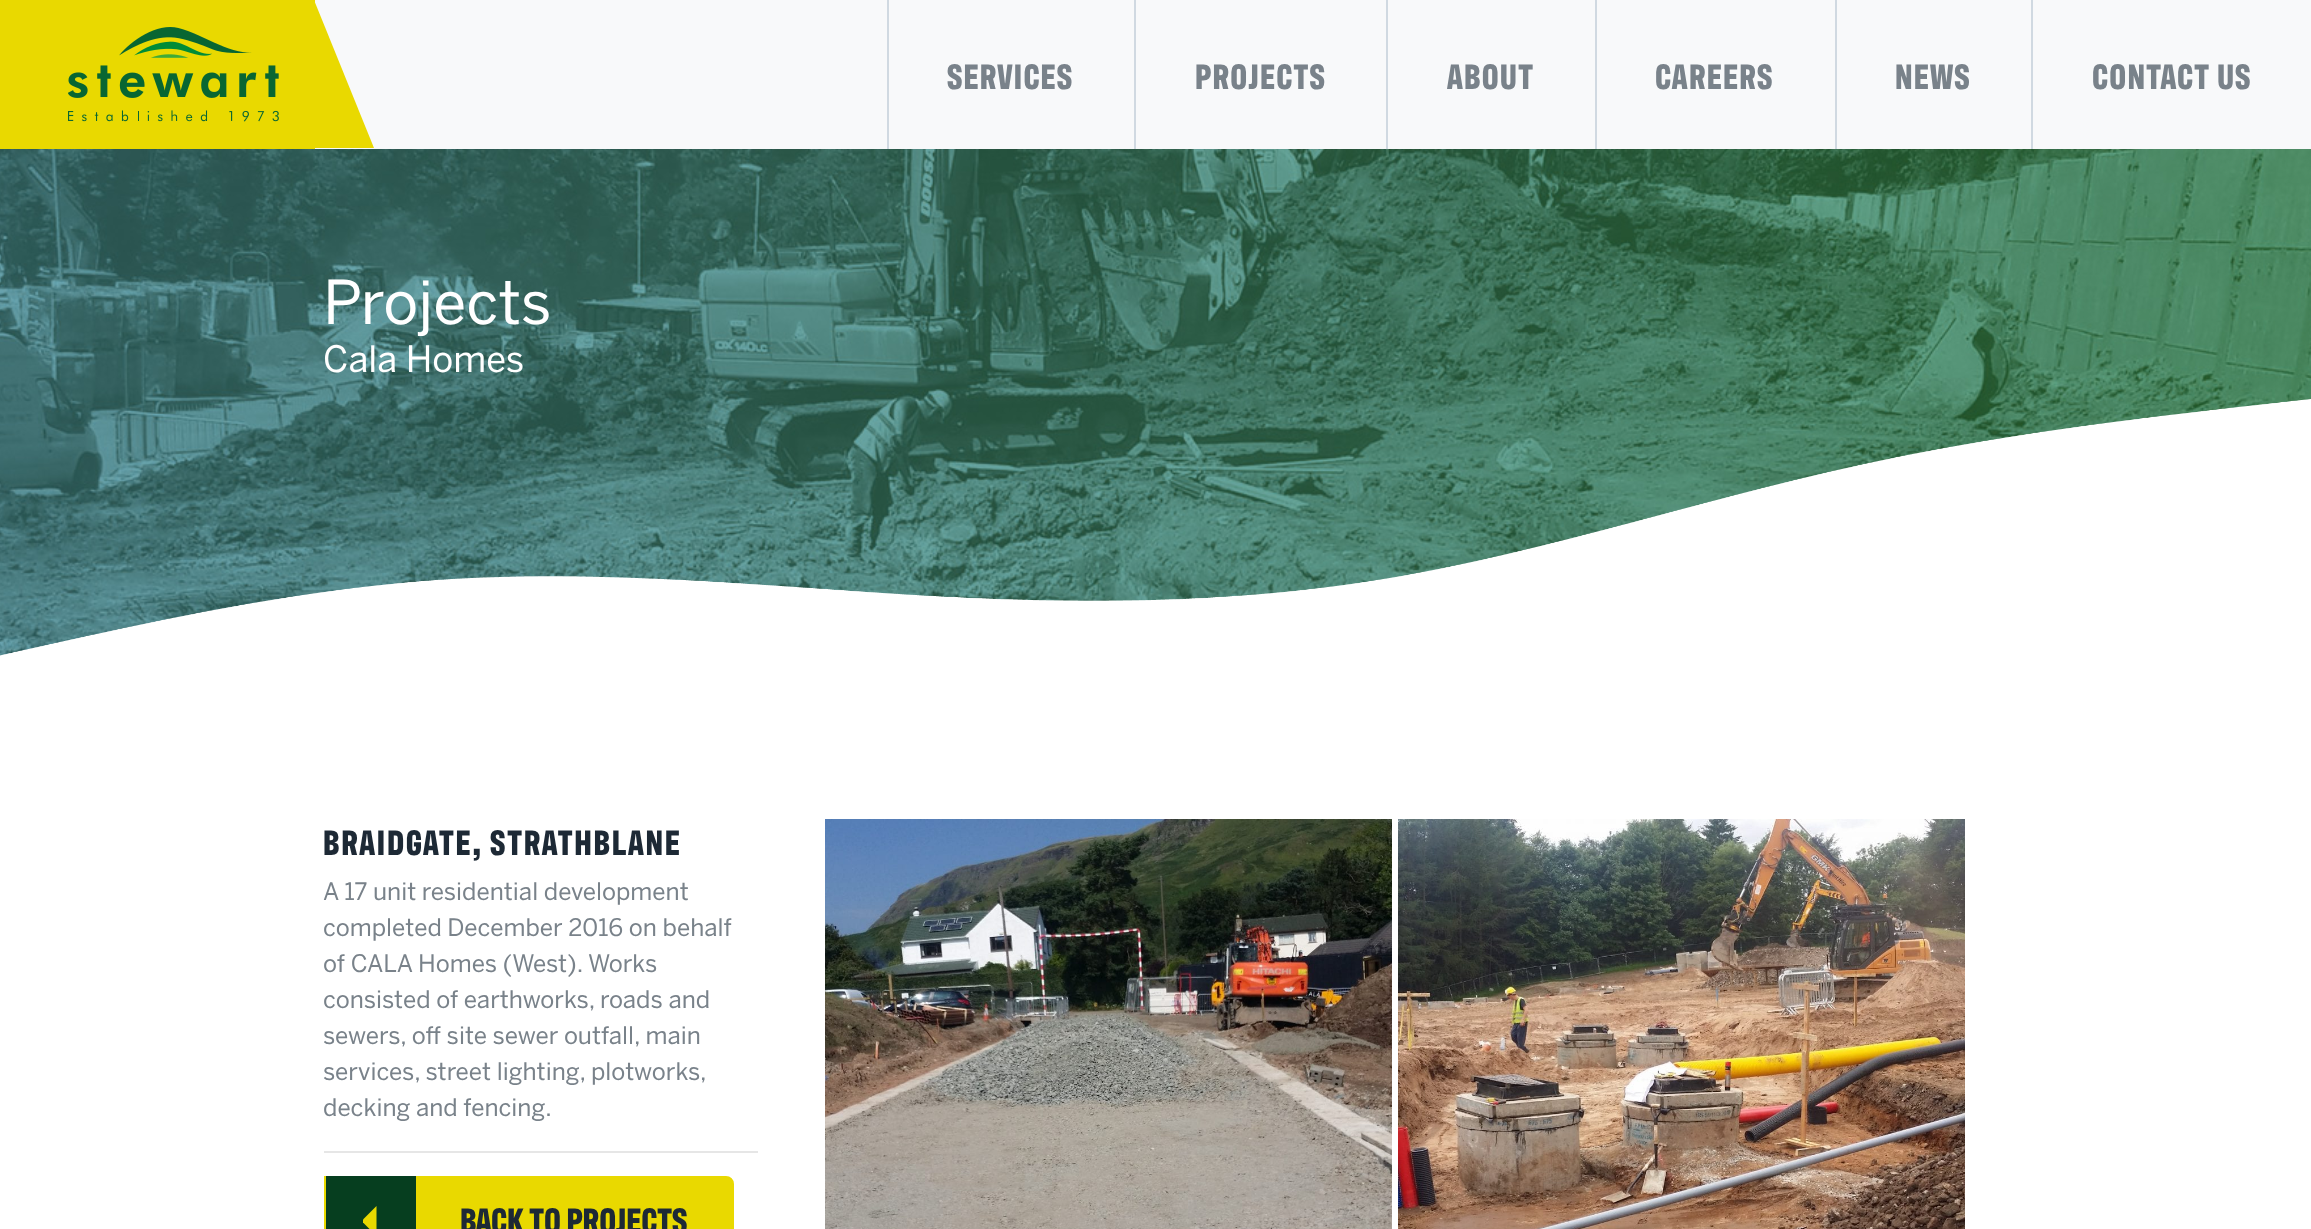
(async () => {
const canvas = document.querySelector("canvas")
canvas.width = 2311
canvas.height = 1229
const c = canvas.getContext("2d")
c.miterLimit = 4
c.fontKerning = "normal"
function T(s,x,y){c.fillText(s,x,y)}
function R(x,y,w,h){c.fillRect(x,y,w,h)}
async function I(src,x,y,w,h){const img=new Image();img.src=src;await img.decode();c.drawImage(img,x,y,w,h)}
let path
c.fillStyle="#fff"
R(0,0,2311,1229)
c.fillStyle="#f8f9fa"
R(315,0,1996,149)
c.fillStyle="#e9d900"
R(0,0,315,149)
await I("1.png",68,27,211,95)
path = new Path2D("M314 148v-148l60 148z")
c.fill(path)
c.letterSpacing="1.25px"
c.font="bold 36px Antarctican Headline"
c.fillStyle="#79828a"
T("SERVICES",947,89)
c.fillStyle="#d0d9e1"
R(887,0,2,149)
c.fillStyle="#79828a"
T("PROJECTS",1195,89)
c.fillStyle="#d0d9e1"
R(1134,0,2,149)
c.fillStyle="#79828a"
T("ABOUT",1447,89)
c.fillStyle="#d0d9e1"
R(1386,0,2,149)
c.fillStyle="#79828a"
T("CAREERS",1655,89)
c.fillStyle="#d0d9e1"
R(1595,0,2,149)
c.fillStyle="#79828a"
T("NEWS",1895,89)
c.fillStyle="#d0d9e1"
R(1835,0,2,149)
c.fillStyle="#79828a"
T("CONTACT US",2092,89)
c.fillStyle="#d0d9e1"
R(2031,0,2,149)
await I("2.png",0,149,2311,507)
c.letterSpacing="0px"
c.font="60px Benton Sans"
c.fillStyle="#fff"
T("Projects",323,324)
c.font="36px Benton Sans"
T("Cala Homes",323,372)
await I("3.png",0,399,2311,270)
c.letterSpacing="1.8px"
c.font="bold 36px Antarctican Headline"
c.fillStyle="#1d2935"
T("BRAIDGATE, STRATHBLANE",323,855)
c.letterSpacing="0px"
c.font="24px Benton Sans"
c.fillStyle="#79828a"
T("A 17 unit residential development",323,900)
T("completed December 2016 on behalf",323,936)
T("of CALA Homes (West).",323,972)
T("Works",588,972)
T("consisted of earthworks, roads and",323,1008)
T("sewers, off site sewer outfall, main",323,1044)
T("services, street lighting, plotworks,",323,1080)
T("decking and fencing.",323,1116)
c.fillStyle="#e6e6e6"
R(324,1151,434,2)
c.fillStyle="#e9d900"
path = new Path2D("M325 1177h401c4 0 7 3 7 7v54h-401c-4 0-7-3-7-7z")
c.fill(path)
c.strokeStyle="#e9d900"
c.lineWidth=2
c.stroke(path)
c.fillStyle="#063e1f"
R(326,1176,90,53)
c.save()
c.beginPath()
c.rect(363,1206,15,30)
c.clip()
c.fillStyle="#e9d900"
path = new Path2D("M376.5 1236l-15-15l15-15z")
c.fill(path)
c.restore()
c.font="bold 36px Antarctican Headline"
c.fillStyle="#1d2935"
T("BACK TO PROJECTS",460,1233)
await I("4.png",825,819,567,410)
await I("5.png",1398,819,567,410)
})()
